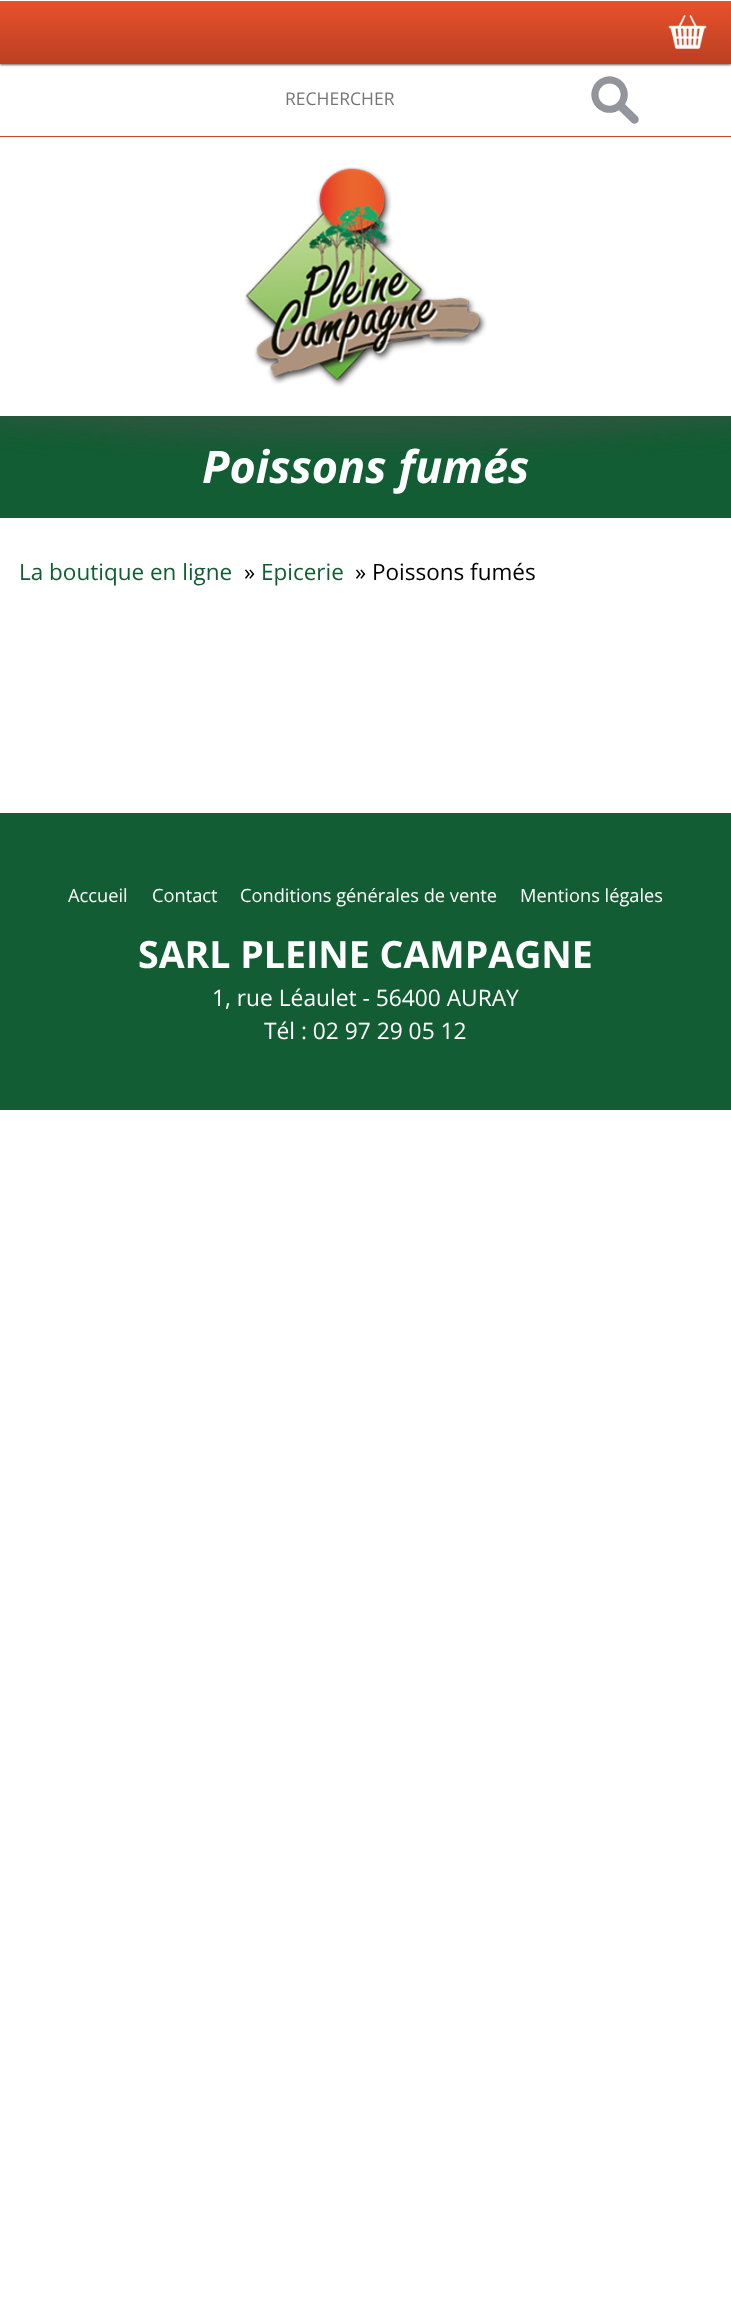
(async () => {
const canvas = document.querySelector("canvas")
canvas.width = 731
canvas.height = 2307
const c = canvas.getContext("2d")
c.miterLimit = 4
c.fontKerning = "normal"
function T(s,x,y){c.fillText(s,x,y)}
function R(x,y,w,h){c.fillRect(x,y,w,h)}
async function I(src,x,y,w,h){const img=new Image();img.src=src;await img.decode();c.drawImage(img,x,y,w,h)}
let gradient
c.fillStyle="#fff"
R(0,0,731,2307)
c.fillStyle="#00000099"
c.filter="blur(1px)"
c.beginPath()
c.rect(0,3,731,62)
c.fill()
c.filter="none"
gradient = c.createLinearGradient(366,1.2,366,64)
gradient.addColorStop(0,"#e9502b")
gradient.addColorStop(1,"#ba4022")
c.fillStyle = gradient
R(0,1,731,63)
await I("1.png",668,15,39,34)
c.fillStyle="#cd4626"
R(0,136,731,1)
c.font="17.5px Open Sans"
c.fillStyle="#757575"
T("RECHERCHER",285,105)
await I("2.png",591,76,48,48)
await I("3.png",244,167,243,220)
c.fillStyle="#125d33"
R(0,416,731,102)
await I("4.png",0,416,731,40)
c.font="italic bold 45px Open Sans"
c.fillStyle="#fff"
T("Poissons fumés",202,483)
c.font="22.5px Open Sans"
c.fillStyle="#125d33"
T("La boutique en ligne",19,580)
c.fillStyle="#000"
T("»",244,580)
c.fillStyle="#125d33"
T("Epicerie",261,580)
c.fillStyle="#000"
T("» Poissons fumés",355,580)
c.fillStyle="#125d33"
R(0,813,731,297)
c.font="18.25px Open Sans"
c.fillStyle="#fff"
T("Accueil",68,902)
T("Contact",152,902)
T("Conditions générales de vente",240,902)
T("Mentions légales",520,902)
c.font="bold 37.5px Open Sans"
T("SARL PLEINE CAMPAGNE",138,968)
c.font="22.75px Open Sans"
T("1, rue Léaulet - 56400 AURAY",212,1006)
T("Tél : 02 97 29 05 12",264,1039)
})()
